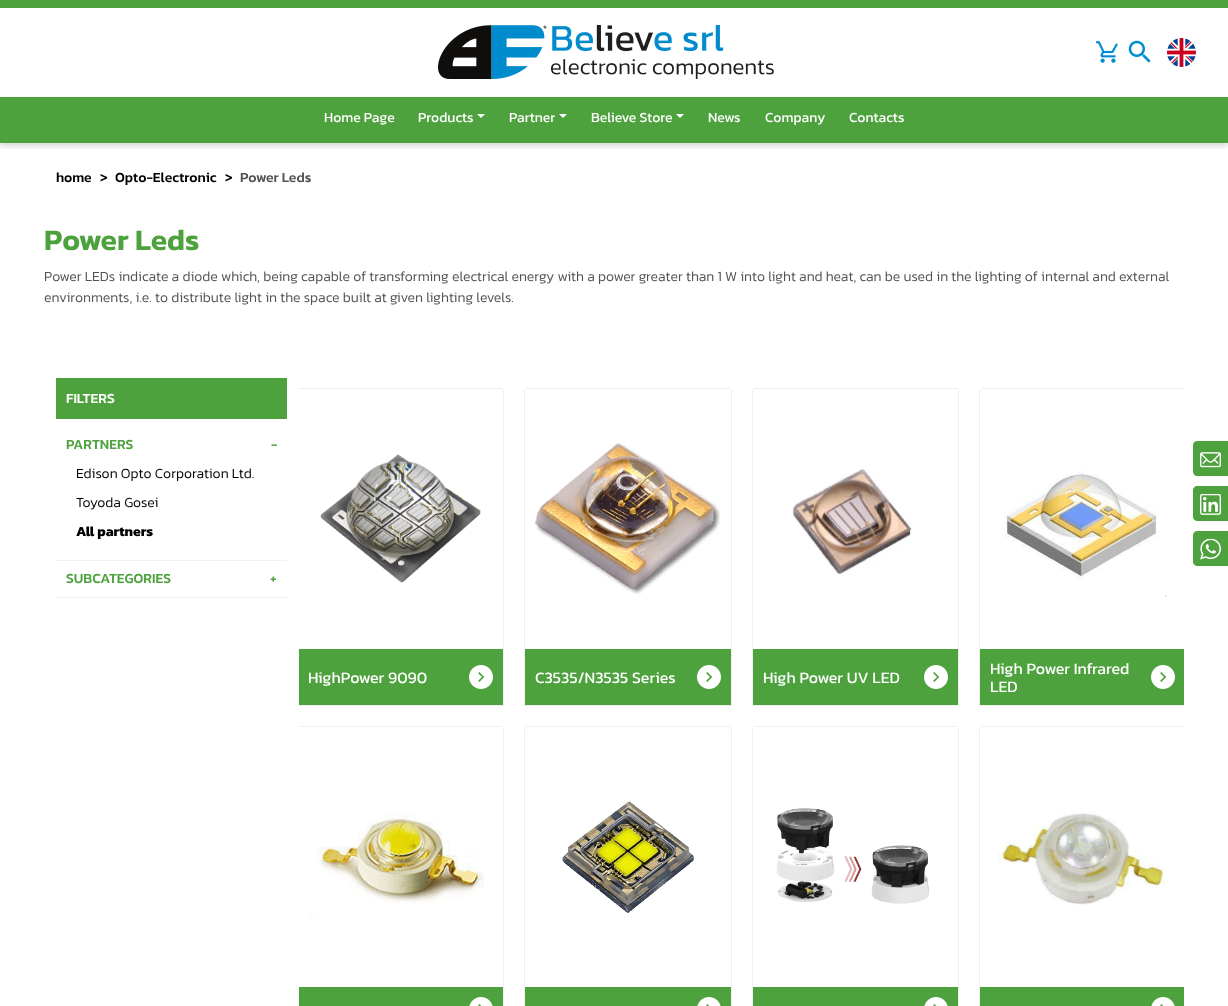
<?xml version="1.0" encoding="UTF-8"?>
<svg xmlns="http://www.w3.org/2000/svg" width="1228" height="1006">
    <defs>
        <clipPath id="clip1"><rect x="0" y="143" width="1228" height="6"/></clipPath>
        <filter id="blur1" x="-50%" y="-200%" width="200%" height="500%"><feGaussianBlur stdDeviation="3"/></filter>
        <clipPath id="clip2"><rect x="299" y="378" width="885" height="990"/></clipPath>
    </defs>
    <rect width="100%" height="100%" fill="#FFFFFF"/>
    <g clip-path="url(#clip1)">
        <rect x="0" y="3" width="1228" height="143" fill="#000000" fill-opacity="0.16" filter="url(#blur1)"/>
    </g>
    <rect x="0" y="0" width="1228" height="8" fill="#4EA23D"/>
    <image x="438" y="25" width="109" height="54" href="img_01.png"/>
    <image x="551" y="25" width="223" height="54" href="img_02.png"/>
    <image x="1096" y="41" width="22" height="22" href="img_03.png"/>
    <image x="1128" y="40" width="23" height="23" href="img_04.png"/>
    <image x="1167" y="38" width="29" height="29" href="img_05.png"/>
    <rect x="0" y="97" width="1228" height="46" fill="#4EA23D"/>
    <text x="324" y="122" font-family="Kanit" font-size="14" fill="#FFFFFF">Home Page</text>
    <text x="418" y="122" font-family="Kanit" font-size="14" fill="#FFFFFF">Products</text>
    <path d="M 477 114 H 485 L 481 118 Z" fill="#FFFFFF"/>
    <text x="509" y="122" font-family="Kanit" font-size="14" fill="#FFFFFF">Partner</text>
    <path d="M 559 114 H 567 L 563 118 Z" fill="#FFFFFF"/>
    <text x="591" y="122" font-family="Kanit" font-size="14" fill="#FFFFFF">Believe Store</text>
    <path d="M 676 114 H 684 L 680 118 Z" fill="#FFFFFF"/>
    <text x="708" y="122" font-family="Kanit" font-size="14" fill="#FFFFFF">News</text>
    <text x="765" y="122" font-family="Kanit" font-size="14" fill="#FFFFFF">Company</text>
    <text x="849" y="122" font-family="Kanit" font-size="14" fill="#FFFFFF">Contacts</text>
    <text x="56" y="182" font-family="Kanit" font-size="14" font-weight="500" fill="#000000">home</text>
    <text x="100" y="182" font-family="Kanit" font-size="14" font-weight="500" fill="#000000">&gt;</text>
    <text x="115" y="182" font-family="Kanit" font-size="14" font-weight="500" fill="#000000">Opto-Electronic</text>
    <text x="225" y="182" font-family="Kanit" font-size="14" font-weight="500" fill="#000000">&gt;</text>
    <text x="240" y="182" font-family="Kanit" font-size="14" font-weight="500" fill="#525252">Power Leds</text>
    <text x="44" y="250" font-family="Kanit" font-size="30" font-weight="600" fill="#4EA23D">Power Leds</text>
    <text font-family="Kanit" font-size="14" font-weight="300" fill="#525252">
        <tspan x="44" y="281">Power LEDs indicate a diode which, being capable of transforming electrical energy with a power greater than 1 W into light and heat, can be used in the lighting of internal and external</tspan>
        <tspan x="44" y="302">environments, i.e. to distribute light in the space built at given lighting levels.</tspan>
    </text>
    <rect x="56" y="378" width="231" height="41" fill="#4EA23D"/>
    <text x="66" y="403" font-family="Kanit" font-size="14" font-weight="500" fill="#FFFFFF">FILTERS</text>
    <rect x="56" y="560" width="231" height="1" fill="#F0F0F0"/>
    <text x="66" y="449" font-family="Kanit" font-size="14" font-weight="500" fill="#4EA23D">PARTNERS</text>
    <text x="271" y="449" font-family="Kanit" font-size="14" font-weight="500" fill="#4EA23D">-</text>
    <text x="76" y="478" font-family="Kanit" font-size="14" font-weight="300" fill="#000000">Edison Opto Corporation Ltd.</text>
    <text x="76" y="507" font-family="Kanit" font-size="14" font-weight="300" fill="#000000">Toyoda Gosei</text>
    <text x="76" y="536" font-family="Kanit" font-size="14" font-weight="700" fill="#000000">All partners</text>
    <rect x="56" y="597" width="231" height="1" fill="#F0F0F0"/>
    <text x="66" y="583" font-family="Kanit" font-size="14" font-weight="500" fill="#4EA23D">SUBCATEGORIES</text>
    <text x="270" y="583" font-family="Kanit" font-size="14" font-weight="500" fill="#4EA23D">+</text>
    <g clip-path="url(#clip2)">
        <path d="M 301 388.5 H 500 C 502 388.5 503.5 390 503.5 392 V 705.5 H 297.5 V 392 C 297.5 390 299 388.5 301 388.5 Z" fill="#4EA23D" stroke="#F0F0F0"/>
    </g>
    <rect x="299" y="389" width="204" height="260" fill="#FFFFFF"/>
    <image x="320" y="454" width="161" height="129" href="img_06.png"/>
    <text x="308" y="683" font-family="Kanit" font-size="16" fill="#FFFFFF">HighPower 9090</text>
    <image x="469" y="665" width="24" height="24" href="img_07.png"/>
    <path d="M 528 388.5 H 728 C 730 388.5 731.5 390 731.5 392 V 705.5 H 524.5 V 392 C 524.5 390 526 388.5 528 388.5 Z" fill="#4EA23D" stroke="#F0F0F0"/>
    <rect x="525" y="389" width="206" height="260" fill="#FFFFFF"/>
    <image x="535" y="443" width="185" height="151" href="img_08.png"/>
    <text x="535" y="683" font-family="Kanit" font-size="16" fill="#FFFFFF">C3535/N3535 Series</text>
    <image x="697" y="665" width="24" height="24" href="img_07.png"/>
    <path d="M 756 388.5 H 955 C 957 388.5 958.5 390 958.5 392 V 705.5 H 752.5 V 392 C 752.5 390 754 388.5 756 388.5 Z" fill="#4EA23D" stroke="#F0F0F0"/>
    <rect x="753" y="389" width="205" height="260" fill="#FFFFFF"/>
    <image x="792" y="469" width="120" height="106" href="img_09.png"/>
    <text x="763" y="683" font-family="Kanit" font-size="16" fill="#FFFFFF">High Power UV LED</text>
    <image x="924" y="665" width="24" height="24" href="img_07.png"/>
    <g clip-path="url(#clip2)">
        <path d="M 983 388.5 H 1182 C 1184 388.5 1185.5 390 1185.5 392 V 705.5 H 979.5 V 392 C 979.5 390 981 388.5 983 388.5 Z" fill="#4EA23D" stroke="#F0F0F0"/>
    </g>
    <rect x="980" y="389" width="204" height="260" fill="#FFFFFF"/>
    <image x="1004" y="470" width="163" height="127" href="img_10.png"/>
    <text font-family="Kanit" font-size="16" fill="#FFFFFF">
        <tspan x="990" y="674">High Power Infrared</tspan>
        <tspan x="990" y="692">LED</tspan>
    </text>
    <image x="1151" y="665" width="24" height="24" href="img_07.png"/>
    <g clip-path="url(#clip2)">
        <path d="M 301 726.5 H 500 C 502 726.5 503.5 728 503.5 730 V 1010.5 H 297.5 V 730 C 297.5 728 299 726.5 301 726.5 Z" fill="#4EA23D" stroke="#F0F0F0"/>
    </g>
    <rect x="299" y="727" width="204" height="260" fill="#FFFFFF"/>
    <image x="308" y="813" width="176" height="104" href="img_11.png"/>
    <image x="469" y="997" width="24" height="9" href="img_12.png"/>
    <path d="M 528 726.5 H 728 C 730 726.5 731.5 728 731.5 730 V 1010.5 H 524.5 V 730 C 524.5 728 526 726.5 528 726.5 Z" fill="#4EA23D" stroke="#F0F0F0"/>
    <rect x="525" y="727" width="206" height="260" fill="#FFFFFF"/>
    <image x="562" y="801" width="132" height="112" href="img_13.png"/>
    <image x="697" y="997" width="24" height="9" href="img_12.png"/>
    <path d="M 756 726.5 H 955 C 957 726.5 958.5 728 958.5 730 V 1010.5 H 752.5 V 730 C 752.5 728 754 726.5 756 726.5 Z" fill="#4EA23D" stroke="#F0F0F0"/>
    <rect x="753" y="727" width="205" height="260" fill="#FFFFFF"/>
    <image x="776" y="808" width="154" height="96" href="img_14.png"/>
    <image x="924" y="997" width="24" height="9" href="img_12.png"/>
    <g clip-path="url(#clip2)">
        <path d="M 983 726.5 H 1182 C 1184 726.5 1185.5 728 1185.5 730 V 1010.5 H 979.5 V 730 C 979.5 728 981 726.5 983 726.5 Z" fill="#4EA23D" stroke="#F0F0F0"/>
    </g>
    <rect x="980" y="727" width="204" height="260" fill="#FFFFFF"/>
    <image x="997" y="811" width="170" height="94" href="img_15.png"/>
    <image x="1151" y="997" width="24" height="9" href="img_12.png"/>
    <path d="M 1197 441 H 1228 V 476 H 1197 C 1195 476 1193 474 1193 472 V 445 C 1193 443 1195 441 1197 441 Z" fill="#4EA23D"/>
    <image x="1200" y="452" width="21" height="16" href="img_16.png"/>
    <path d="M 1197 486 H 1228 V 521 H 1197 C 1195 521 1193 519 1193 517 V 490 C 1193 488 1195 486 1197 486 Z" fill="#4EA23D"/>
    <image x="1200" y="494" width="21" height="21" href="img_17.png"/>
    <path d="M 1197 531 H 1228 V 566 H 1197 C 1195 566 1193 564 1193 562 V 535 C 1193 533 1195 531 1197 531 Z" fill="#4EA23D"/>
    <image x="1200" y="539" width="21" height="21" href="img_18.png"/>
</svg>
